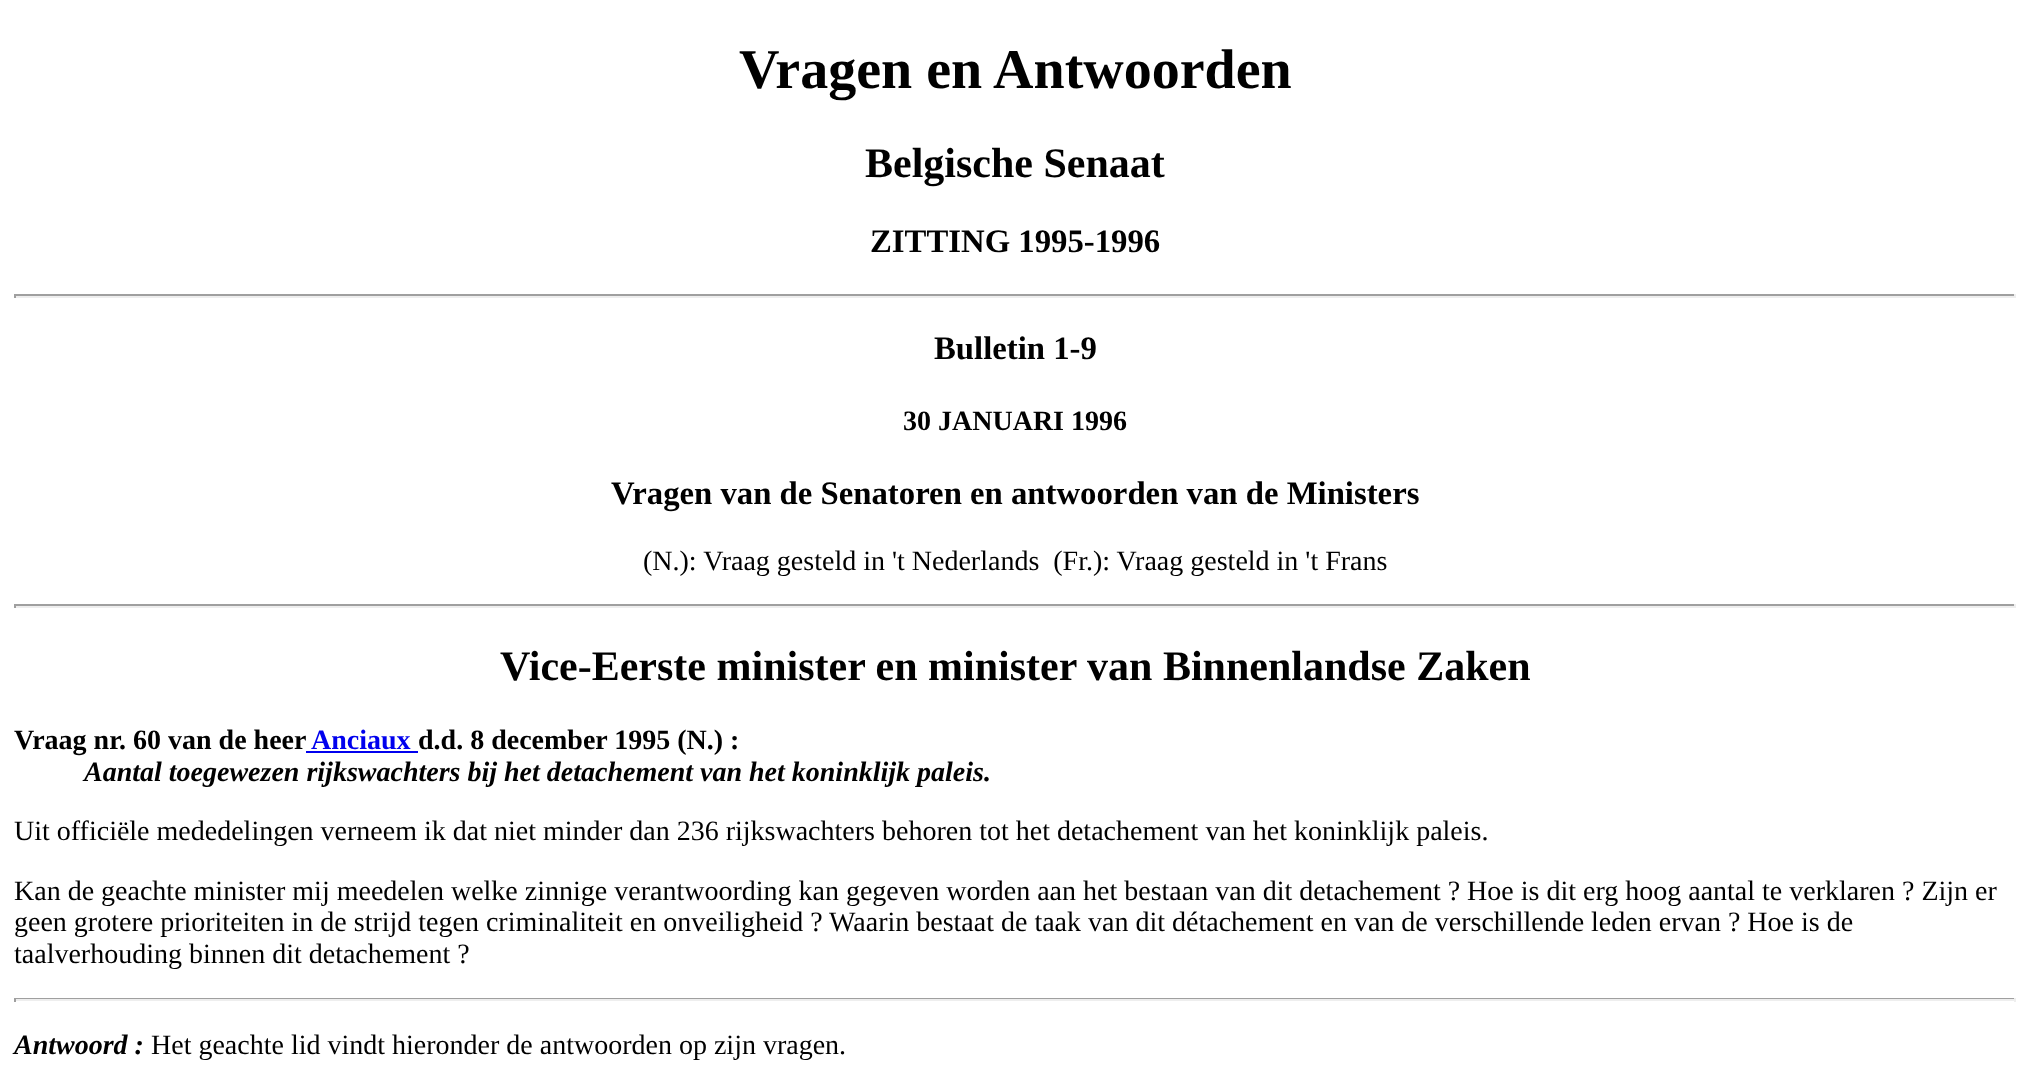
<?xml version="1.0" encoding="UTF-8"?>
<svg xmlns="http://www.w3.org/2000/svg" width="2029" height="1083">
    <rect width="100%" height="100%" fill="#FFFFFF"/>
    <text x="739" y="88" font-family="Liberation Serif" font-size="56" font-weight="700" fill="#000000">Vragen en Antwoorden</text>
    <text x="865" y="177" font-family="Liberation Serif" font-size="42" font-weight="700" fill="#000000">Belgische Senaat</text>
    <text x="870" y="252" font-family="Liberation Serif" font-size="32.75" font-weight="700" fill="#000000">ZITTING 1995-1996</text>
    <rect x="14" y="294" width="2002" height="2" fill="#9F9F9F"/>
    <rect x="2014" y="294" width="2" height="4" fill="#EEEEEE"/>
    <rect x="14" y="296" width="2002" height="2" fill="#EEEEEE"/>
    <rect x="14" y="294" width="2" height="4" fill="#9F9F9F"/>
    <text x="934" y="359" font-family="Liberation Serif" font-size="32.75" font-weight="700" fill="#000000">Bulletin 1-9</text>
    <text x="903" y="430" font-family="Liberation Serif" font-size="28" font-weight="700" fill="#000000">30 JANUARI 1996</text>
    <text x="611" y="504" font-family="Liberation Serif" font-size="32.75" font-weight="700" fill="#000000">Vragen van de Senatoren en antwoorden van de Ministers</text>
    <text x="643" y="570" font-family="Liberation Serif" font-size="28" fill="#000000" xml:space="preserve">(N.): Vraag gesteld in 't Nederlands  (Fr.): Vraag gesteld in 't Frans</text>
    <rect x="14" y="604" width="2002" height="2" fill="#9F9F9F"/>
    <rect x="2014" y="604" width="2" height="4" fill="#EEEEEE"/>
    <rect x="14" y="606" width="2002" height="2" fill="#EEEEEE"/>
    <rect x="14" y="604" width="2" height="4" fill="#9F9F9F"/>
    <text x="500" y="680" font-family="Liberation Serif" font-size="42" font-weight="700" fill="#000000">Vice-Eerste minister en minister van Binnenlandse Zaken</text>
    <text x="14" y="749" font-family="Liberation Serif" font-size="28" font-weight="700" fill="#000000">Vraag nr. 60 van de heer</text>
    <rect x="306" y="751" width="112" height="2" fill="#0000EE"/>
    <text x="311" y="749" font-family="Liberation Serif" font-size="28" font-weight="700" fill="#0000EE">Anciaux</text>
    <text x="418" y="749" font-family="Liberation Serif" font-size="28" font-weight="700" fill="#000000">d.d. 8 december 1995 (N.) :</text>
    <text x="84" y="781" font-family="Liberation Serif" font-size="28" font-weight="700" font-style="italic" fill="#000000">Aantal toegewezen rijkswachters bij het detachement van het koninklijk paleis.</text>
    <text x="14" y="840" font-family="Liberation Serif" font-size="28" fill="#000000">Uit officiële mededelingen verneem ik dat niet minder dan 236 rijkswachters behoren tot het detachement van het koninklijk paleis.</text>
    <text font-family="Liberation Serif" font-size="28" fill="#000000">
        <tspan x="14" y="900">Kan de geachte minister mij meedelen welke zinnige verantwoording kan gegeven worden aan het bestaan van dit detachement ? Hoe is dit erg hoog aantal te verklaren ? Zijn er</tspan>
        <tspan x="14" y="931">geen grotere prioriteiten in de strijd tegen criminaliteit en onveiligheid ? Waarin bestaat de taak van dit détachement en van de verschillende leden ervan ? Hoe is de</tspan>
        <tspan x="14" y="963">taalverhouding binnen dit detachement ?</tspan>
    </text>
    <rect x="14" y="998" width="2002" height="1" fill="#9F9F9F"/>
    <rect x="2014" y="998" width="2" height="4" fill="#EEEEEE"/>
    <rect x="14" y="999" width="2002" height="2" fill="#EEEEEE"/>
    <rect x="14" y="998" width="2" height="4" fill="#9F9F9F"/>
    <text x="14" y="1054" font-family="Liberation Serif" font-size="28" font-weight="700" font-style="italic" fill="#000000">Antwoord :</text>
    <text x="151" y="1054" font-family="Liberation Serif" font-size="28" fill="#000000">Het geachte lid vindt hieronder de antwoorden op zijn vragen.</text>
</svg>
